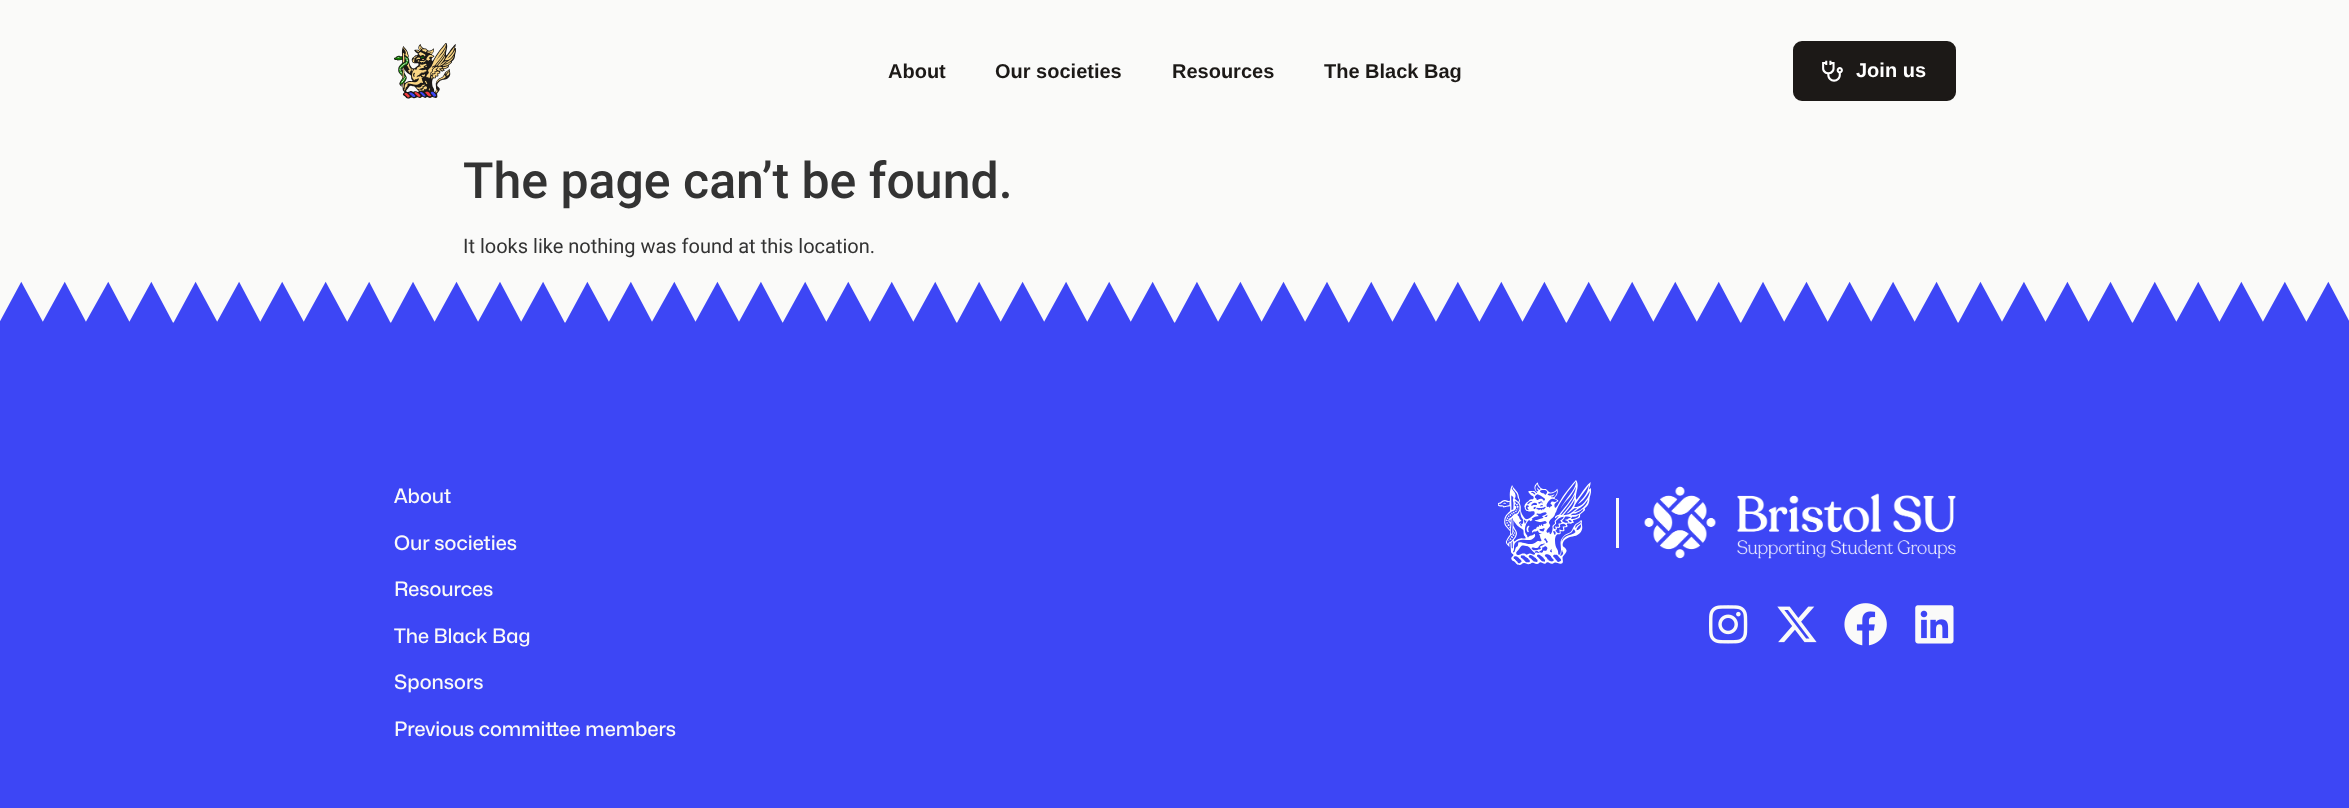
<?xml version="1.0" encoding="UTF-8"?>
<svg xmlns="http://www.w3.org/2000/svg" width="2349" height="808">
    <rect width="100%" height="100%" fill="#FAFAF9"/>
    <image x="394" y="43" width="62" height="56" href="img_01.png"/>
    <text x="888" y="78" font-family="Liberation Sans" font-size="20" font-weight="700" fill="#1C1917">About</text>
    <text x="995" y="78" font-family="Liberation Sans" font-size="20" font-weight="700" fill="#1C1917">Our societies</text>
    <text x="1172" y="78" font-family="Liberation Sans" font-size="20" font-weight="700" fill="#1C1917">Resources</text>
    <text x="1324" y="78" font-family="Liberation Sans" font-size="20" font-weight="700" fill="#1C1917">The Black Bag</text>
    <rect x="1794.5" y="42.5" width="160" height="57" rx="7.5" fill="#1C1917" stroke="#1C1917" stroke-width="3"/>
    <image x="1822" y="60" width="21" height="22" href="img_02.png"/>
    <text x="1856" y="77" font-family="Liberation Sans" font-size="20" font-weight="700" fill="#FFFFFF">Join us</text>
    <text x="463" y="198" font-family="Roboto" font-size="50" font-weight="500" fill="#333333">The page can’t be found.</text>
    <text x="463" y="253" font-family="Roboto" font-size="20" fill="#333333">It looks like nothing was found at this location.</text>
    <rect x="0" y="281" width="2349" height="527" fill="#3D46F5"/>
    <image x="0" y="280" width="2349" height="43" href="img_03.png"/>
    <text x="394" y="503" font-family="Mona Sans" font-size="20" font-weight="500" fill="#FAFAF9">About</text>
    <text x="394" y="550" font-family="Mona Sans" font-size="20" font-weight="500" fill="#FAFAF9">Our societies</text>
    <text x="394" y="596" font-family="Mona Sans" font-size="20" font-weight="500" fill="#FAFAF9">Resources</text>
    <text x="394" y="643" font-family="Mona Sans" font-size="20" font-weight="500" fill="#FAFAF9">The Black Bag</text>
    <text x="394" y="689" font-family="Mona Sans" font-size="20" font-weight="500" fill="#FAFAF9">Sponsors</text>
    <text x="394" y="736" font-family="Mona Sans" font-size="20" font-weight="500" fill="#FAFAF9">Previous committee members</text>
    <image x="1498" y="480" width="93" height="85" href="img_04.png"/>
    <rect x="1616" y="498" width="3" height="50" fill="#FAFAF9"/>
    <image x="1644" y="486" width="312" height="73" href="img_05.png"/>
    <image x="1709" y="605" width="39" height="39" href="img_06.png"/>
    <image x="1777" y="606" width="40" height="37" href="img_07.png"/>
    <image x="1844" y="603" width="43" height="43" href="img_08.png"/>
    <image x="1915" y="605" width="39" height="39" href="img_09.png"/>
</svg>
